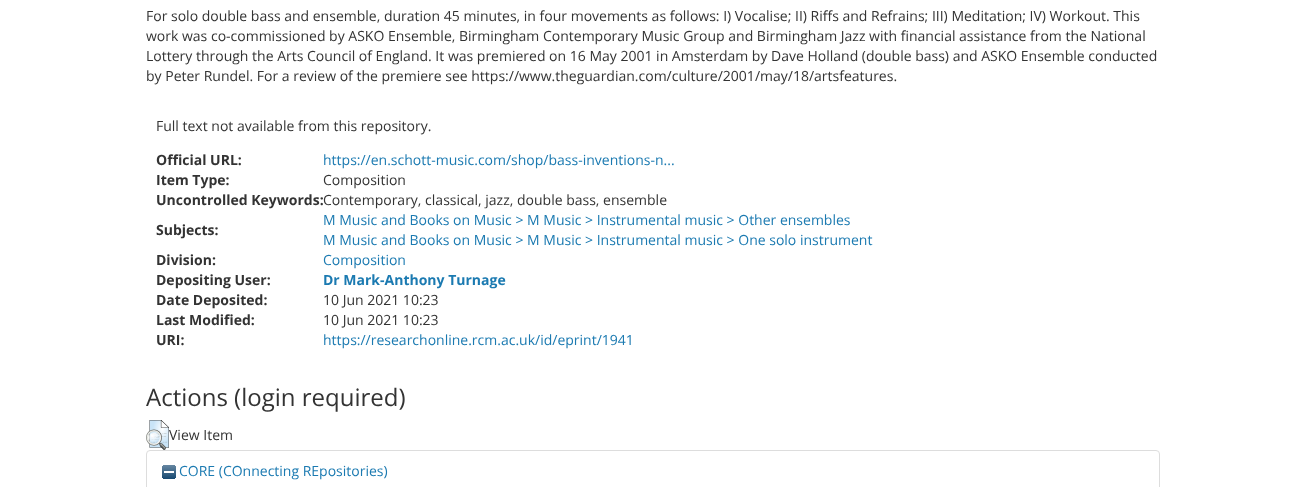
<?xml version="1.0" encoding="UTF-8"?>
<svg xmlns="http://www.w3.org/2000/svg" width="1306" height="487">
    <rect width="100%" height="100%" fill="#FFFFFF"/>
    <text font-family="Open Sans" font-size="14" fill="#333333">
        <tspan x="146" y="21">For solo double bass and ensemble, duration 45 minutes, in four movements as follows: I) Vocalise; II) Riffs and Refrains; III) Meditation; IV) Workout. This</tspan>
        <tspan x="146" y="41">work was co-commissioned by ASKO Ensemble, Birmingham Contemporary Music Group and Birmingham Jazz with financial assistance from the National</tspan>
        <tspan x="146" y="61">Lottery through the Arts Council of England. It was premiered on 16 May 2001 in Amsterdam by Dave Holland (double bass) and ASKO Ensemble conducted</tspan>
        <tspan x="146" y="81">by Peter Rundel. For a review of the premiere see https://www.theguardian.com/culture/2001/may/18/artsfeatures.</tspan>
    </text>
    <text x="156" y="131" font-family="Open Sans" font-size="14" fill="#333333">Full text not available from this repository.</text>
    <text x="156" y="165" font-family="Open Sans" font-size="14" font-weight="700" fill="#333333">Official URL:</text>
    <text x="323" y="165" font-family="Open Sans" font-size="14" fill="#1B7AB1">https://en.schott-music.com/shop/bass-inventions-n...</text>
    <text x="156" y="185" font-family="Open Sans" font-size="14" font-weight="700" fill="#333333">Item Type:</text>
    <text x="323" y="185" font-family="Open Sans" font-size="14" fill="#333333">Composition</text>
    <text x="156" y="205" font-family="Open Sans" font-size="14" font-weight="700" fill="#333333">Uncontrolled Keywords:</text>
    <text x="323" y="205" font-family="Open Sans" font-size="14" fill="#333333">Contemporary, classical, jazz, double bass, ensemble</text>
    <text x="156" y="235" font-family="Open Sans" font-size="14" font-weight="700" fill="#333333">Subjects:</text>
    <text font-family="Open Sans" font-size="14" fill="#1B7AB1">
        <tspan x="323" y="225">M Music and Books on Music &gt; M Music &gt; Instrumental music &gt; Other ensembles</tspan>
        <tspan x="323" y="245">M Music and Books on Music &gt; M Music &gt; Instrumental music &gt; One solo instrument</tspan>
    </text>
    <text x="156" y="265" font-family="Open Sans" font-size="14" font-weight="700" fill="#333333">Division:</text>
    <text x="323" y="265" font-family="Open Sans" font-size="14" fill="#1B7AB1">Composition</text>
    <text x="156" y="285" font-family="Open Sans" font-size="14" font-weight="700" fill="#333333">Depositing User:</text>
    <text x="323" y="285" font-family="Open Sans" font-size="14" font-weight="700" fill="#1B7AB1">Dr Mark-Anthony Turnage</text>
    <text x="156" y="305" font-family="Open Sans" font-size="14" font-weight="700" fill="#333333">Date Deposited:</text>
    <text x="323" y="305" font-family="Open Sans" font-size="14" fill="#333333">10 Jun 2021 10:23</text>
    <text x="156" y="325" font-family="Open Sans" font-size="14" font-weight="700" fill="#333333">Last Modified:</text>
    <text x="323" y="325" font-family="Open Sans" font-size="14" fill="#333333">10 Jun 2021 10:23</text>
    <text x="156" y="345" font-family="Open Sans" font-size="14" font-weight="700" fill="#333333">URI:</text>
    <text x="323" y="345" font-family="Open Sans" font-size="14" fill="#1B7AB1">https://researchonline.rcm.ac.uk/id/eprint/1941</text>
    <text x="146" y="406" font-family="Open Sans" font-size="24" fill="#333333">Actions (login required)</text>
    <image x="146" y="420" width="23" height="30" href="img_01.png"/>
    <text x="169" y="440" font-family="Open Sans" font-size="14" fill="#333333">View Item</text>
    <rect x="146.5" y="450.5" width="1013" height="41" rx="3.5" fill="none" stroke="#DDDDDD"/>
    <image x="162" y="465" width="14" height="14" href="img_02.png"/>
    <text x="179" y="476" font-family="Open Sans" font-size="14" fill="#1B7AB1">CORE (COnnecting REpositories)</text>
</svg>
